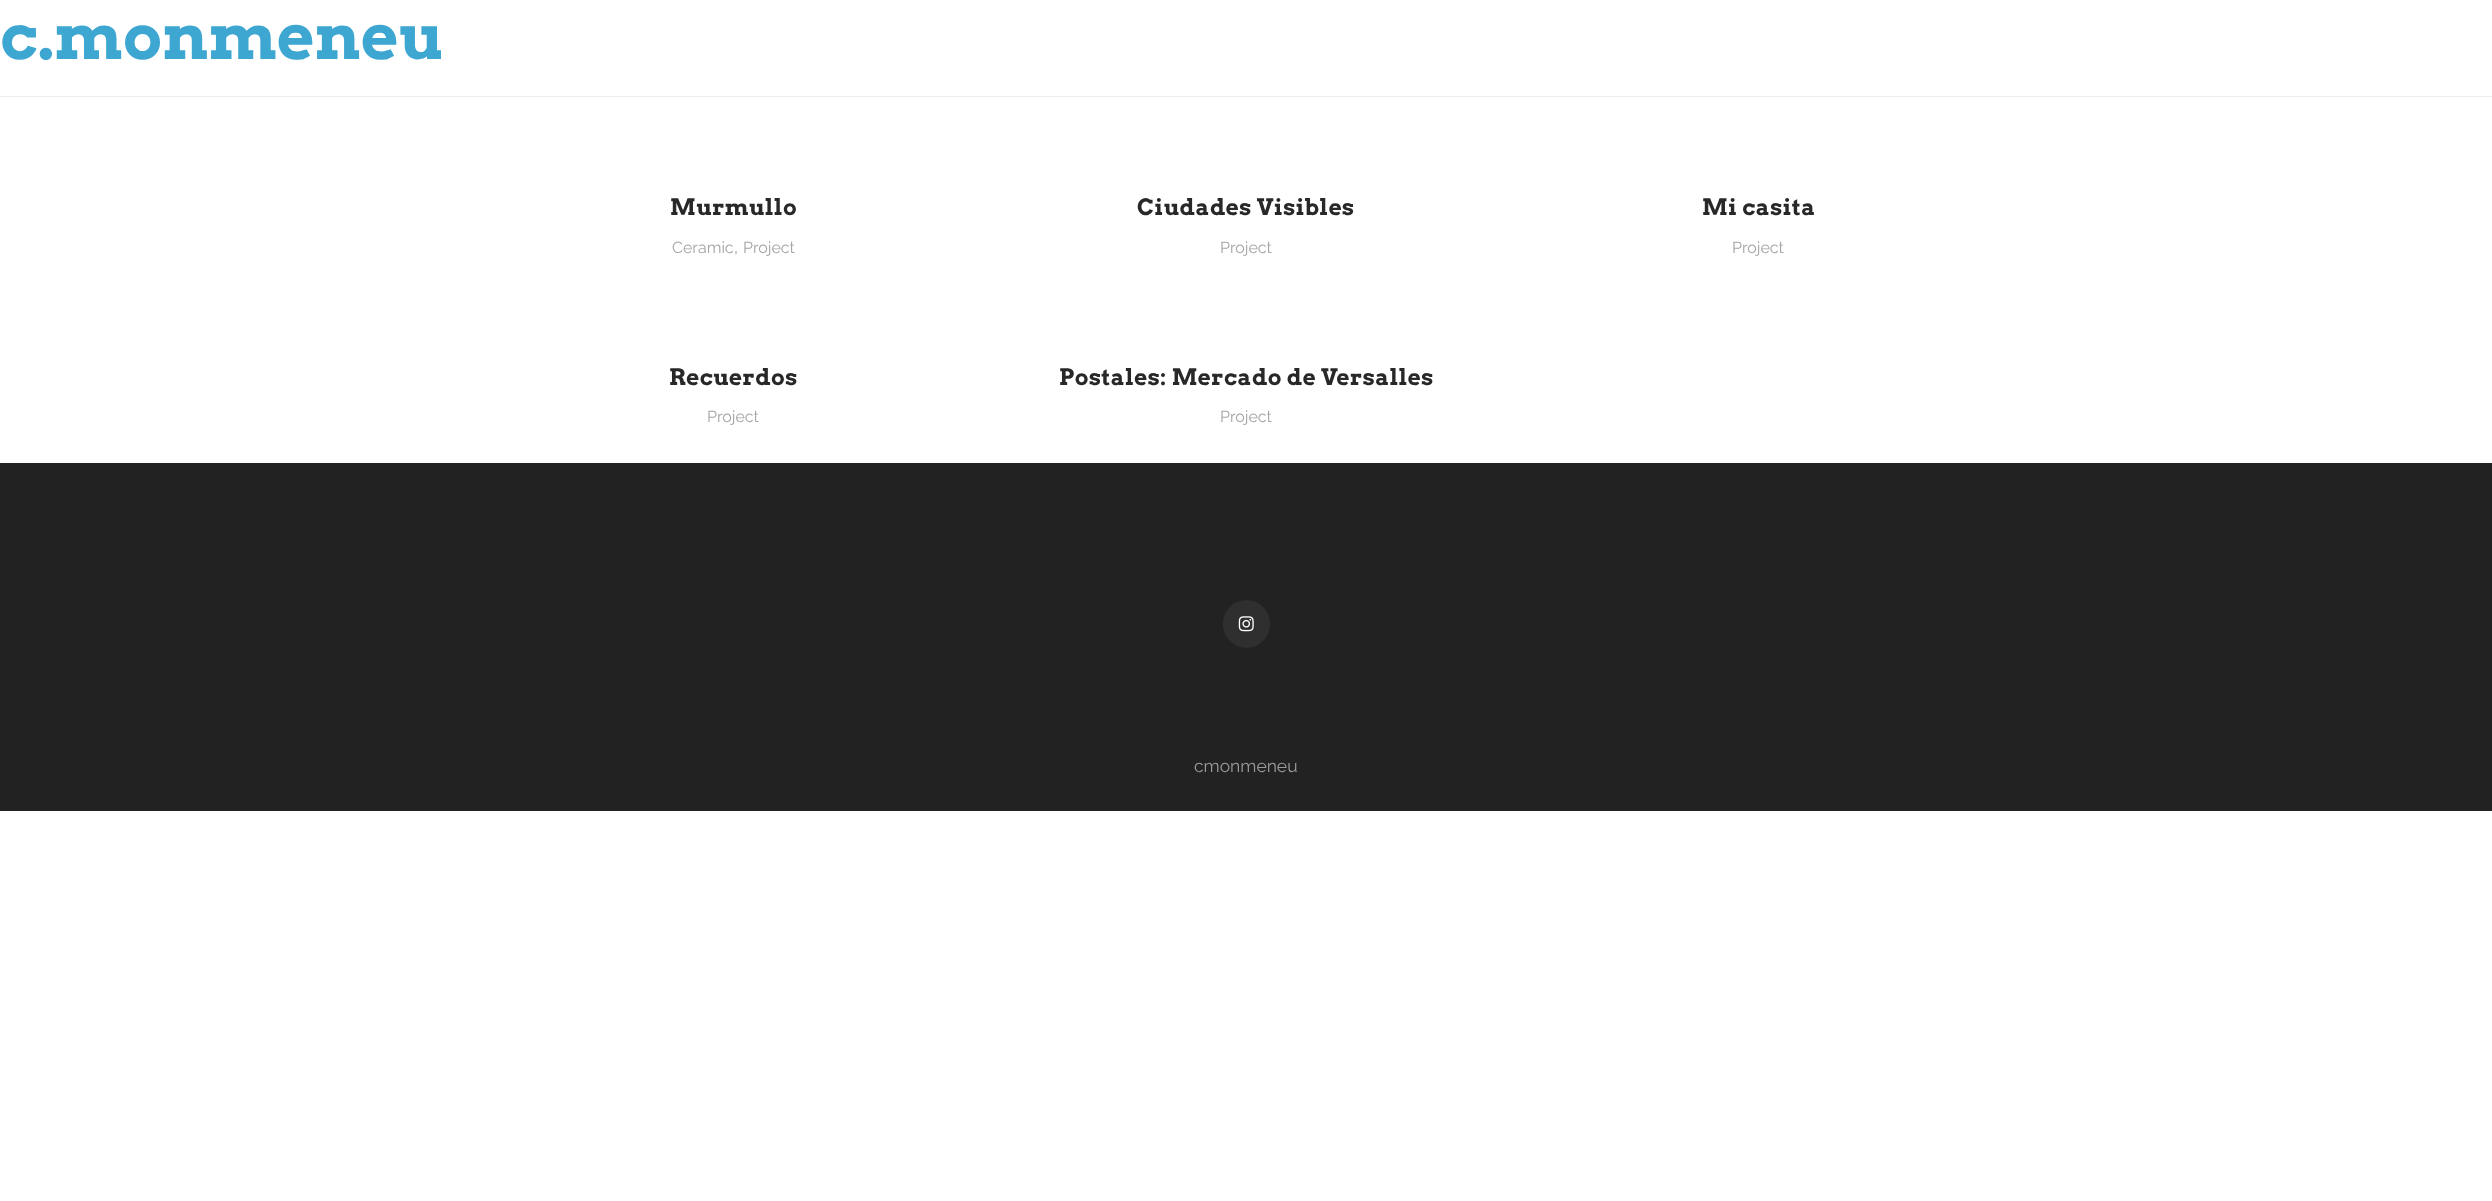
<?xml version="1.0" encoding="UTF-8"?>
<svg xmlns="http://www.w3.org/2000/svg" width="2492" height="1201">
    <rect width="100%" height="100%" fill="#FFFFFF"/>
    <text x="0" y="59" font-family="Arvo" font-size="65" font-weight="700" fill="#3EA7D1">c.monmeneu</text>
    <rect x="0" y="96" width="2492" height="1" fill="#EEEEEE"/>
    <text x="670" y="215" font-family="Arvo" font-size="22.5" font-weight="700" letter-spacing="0.45" fill="#282828">Murmullo</text>
    <text x="672" y="253" font-family="Raleway" font-size="16" fill="#A5A5A5">Ceramic</text>
    <text x="734" y="253" font-family="Raleway" font-size="17.5" fill="#9B9B9B">,</text>
    <text x="743" y="253" font-family="Raleway" font-size="16" fill="#A5A5A5">Project</text>
    <text x="1137" y="215" font-family="Arvo" font-size="22.5" font-weight="700" letter-spacing="0.45" fill="#282828">Ciudades Visibles</text>
    <text x="1220" y="253" font-family="Raleway" font-size="16" fill="#A5A5A5">Project</text>
    <text x="1702" y="215" font-family="Arvo" font-size="22.5" font-weight="700" letter-spacing="0.45" fill="#282828">Mi casita</text>
    <text x="1732" y="253" font-family="Raleway" font-size="16" fill="#A5A5A5">Project</text>
    <text x="669" y="385" font-family="Arvo" font-size="22.5" font-weight="700" letter-spacing="0.45" fill="#282828">Recuerdos</text>
    <text x="707" y="422" font-family="Raleway" font-size="16" fill="#A5A5A5">Project</text>
    <text x="1059" y="385" font-family="Arvo" font-size="22.5" font-weight="700" letter-spacing="0.45" fill="#282828">Postales: Mercado de Versalles</text>
    <text x="1220" y="422" font-family="Raleway" font-size="16" fill="#A5A5A5">Project</text>
    <rect x="0" y="463" width="2492" height="348" fill="#222222"/>
    <rect x="1223" y="600" width="47" height="48" rx="23.5" fill="#2F2F2F"/>
    <image x="1238" y="616" width="16" height="16" href="img_01.png"/>
    <text x="1194" y="772" font-family="Raleway" font-size="17.5" fill="#9B9B9B">cmonmeneu</text>
</svg>
